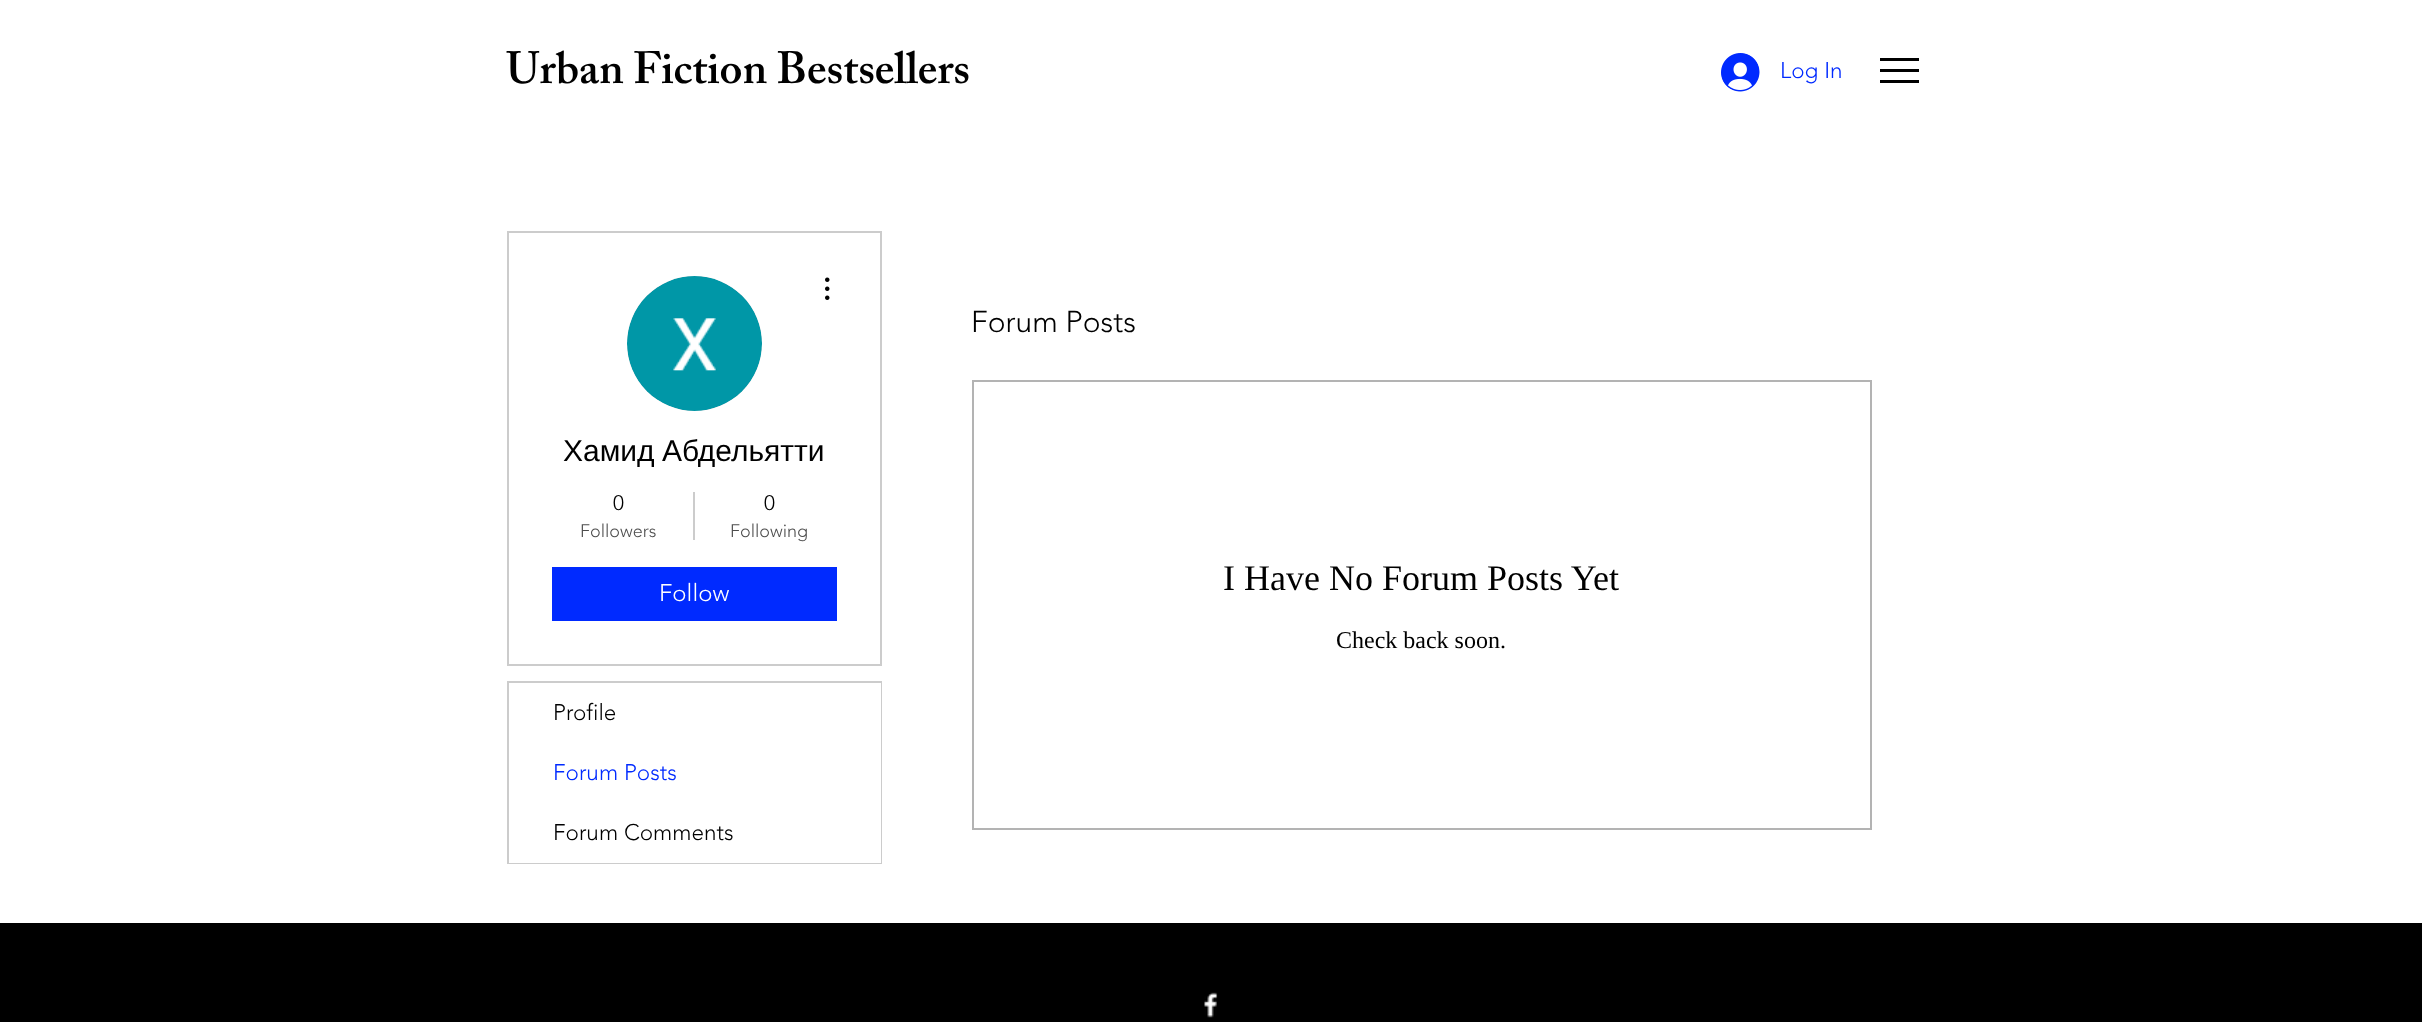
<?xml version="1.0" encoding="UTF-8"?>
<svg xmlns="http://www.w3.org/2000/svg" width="2422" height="1022">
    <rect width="100%" height="100%" fill="#FFFFFF"/>
    <text x="506" y="83" font-family="'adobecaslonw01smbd'" font-size="45" font-weight="600" fill="#000000">Urban Fiction Bestsellers</text>
    <image x="1721" y="53" width="39" height="39" href="img_01.png"/>
    <text x="1780" y="78" font-family="'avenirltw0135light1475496'" font-size="22.5" font-weight="300" fill="#002AFF">Log In</text>
    <rect x="1880" y="80" width="39" height="3" fill="#000000"/>
    <rect x="1880" y="58" width="39" height="3" fill="#000000"/>
    <rect x="1880" y="69" width="39" height="3" fill="#000000"/>
    <rect x="508" y="232" width="373" height="433" fill="none" stroke="#CCCCCC" stroke-width="2"/>
    <circle cx="694.5" cy="343.5" r="67.5" fill="#D8D8D8"/>
    <image x="627" y="276" width="135" height="135" href="img_02.png"/>
    <image x="825" y="277" width="5" height="23" href="img_03.png"/>
    <text x="563" y="461" word-spacing="-1" font-family="Liberation Sans" font-size="30" fill="#000000">Хамид Абдельятти</text>
    <text x="613" y="510" font-family="'avenirltw0135light1475496'" font-size="21" font-weight="300" fill="#000000">0</text>
    <text x="580" y="537" font-family="'avenirltw0135light1475496'" font-size="18" font-weight="300" fill="#4D4D4D">Followers</text>
    <rect x="693" y="492" width="2" height="48" fill="#CCCCCC"/>
    <text x="764" y="510" font-family="'avenirltw0135light1475496'" font-size="21" font-weight="300" fill="#000000">0</text>
    <text x="730" y="537" font-family="'avenirltw0135light1475496'" font-size="18" font-weight="300" fill="#4D4D4D">Following</text>
    <rect x="552" y="567" width="285" height="54" fill="#002AFF"/>
    <text x="659" y="601" font-family="'avenirltw0135light1475496'" font-size="24" font-weight="300" fill="#FFFFFF">Follow</text>
    <rect x="508" y="682" width="373" height="181" fill="none" stroke="#CCCCCC" stroke-width="2"/>
    <rect x="880" y="683" width="1" height="120" fill="#FFFFFF"/>
    <text x="553" y="720" font-family="'avenirltw0135light1475496'" font-size="22.5" font-weight="300" fill="#000000">Profile</text>
    <text x="553" y="780" font-family="'avenirltw0135light1475496'" font-size="22.5" font-weight="300" fill="#002AFF">Forum Posts</text>
    <rect x="509" y="803" width="372" height="60" fill="#FFFFFF"/>
    <text x="553" y="840" font-family="'avenirltw0135light1475496'" font-size="22.5" font-weight="300" fill="#000000">Forum Comments</text>
    <text x="971" y="332" font-family="'avenirltw0135light1475496'" font-size="30" font-weight="300" fill="#000000">Forum Posts</text>
    <rect x="973" y="381" width="898" height="448" fill="none" stroke="#B3B3B3" stroke-width="2"/>
    <text x="1223" y="590" font-family="Liberation Serif" font-size="36" fill="#000000">I Have No Forum Posts Yet</text>
    <text x="1336" y="648" font-family="Liberation Serif" font-size="24" fill="#000000">Check back soon.</text>
    <rect x="0" y="923" width="2422" height="99" fill="#000000"/>
    <image x="1204" y="992" width="14" height="26" href="img_04.png"/>
</svg>
